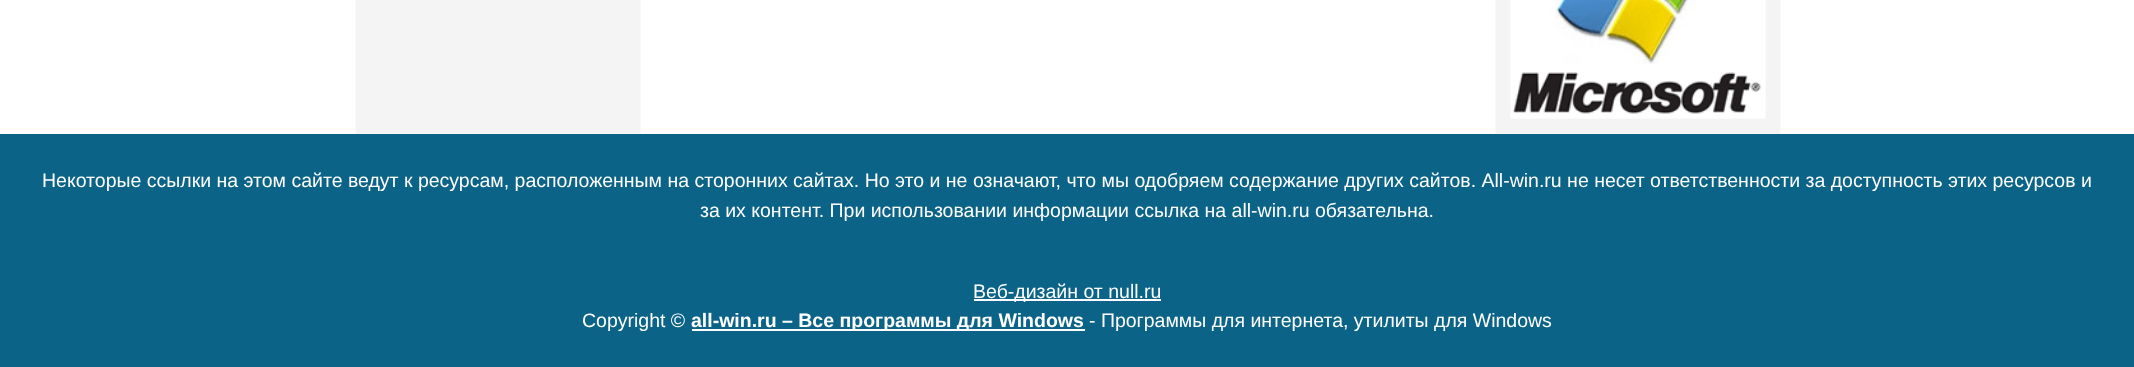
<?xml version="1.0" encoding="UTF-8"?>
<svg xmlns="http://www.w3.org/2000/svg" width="2134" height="367">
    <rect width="100%" height="100%" fill="#FFFFFF"/>
    <image x="355" y="0" width="1426" height="134" href="img_01.png"/>
    <image x="1510" y="0" width="256" height="119" href="img_02.png"/>
    <rect x="0" y="134" width="2134" height="233" fill="#0B6387"/>
    <text x="42" y="187" font-family="Liberation Sans" font-size="19.5" fill="#FFFFFF">Некоторые ссылки на этом сайте ведут к ресурсам, расположенным на сторонних сайтах. Но это и не означают, что мы одобряем содержание других сайтов. All-win.ru не несет ответственности за доступность этих ресурсов и</text>
    <text x="700" y="217" font-family="Liberation Sans" font-size="19.5" fill="#FFFFFF">за их контент. При использовании информации ссылка на all-win.ru обязательна.</text>
    <rect x="974" y="299" width="187" height="2" fill="#FFFFFF"/>
    <text x="973" y="298" font-family="Liberation Sans" font-size="19.5" fill="#FFFFFF">Веб-дизайн от null.ru</text>
    <text x="582" y="327" font-family="Liberation Sans" font-size="19.5" fill="#FFFFFF">Copyright ©</text>
    <rect x="692" y="329" width="393" height="2" fill="#FFFFFF"/>
    <text x="691" y="327" font-family="Liberation Sans" font-size="19.5" font-weight="700" fill="#FFFFFF">all-win.ru – Все программы для Windows</text>
    <text x="1089" y="327" font-family="Liberation Sans" font-size="19.5" fill="#FFFFFF">- Программы для интернета, утилиты для Windows</text>
</svg>
